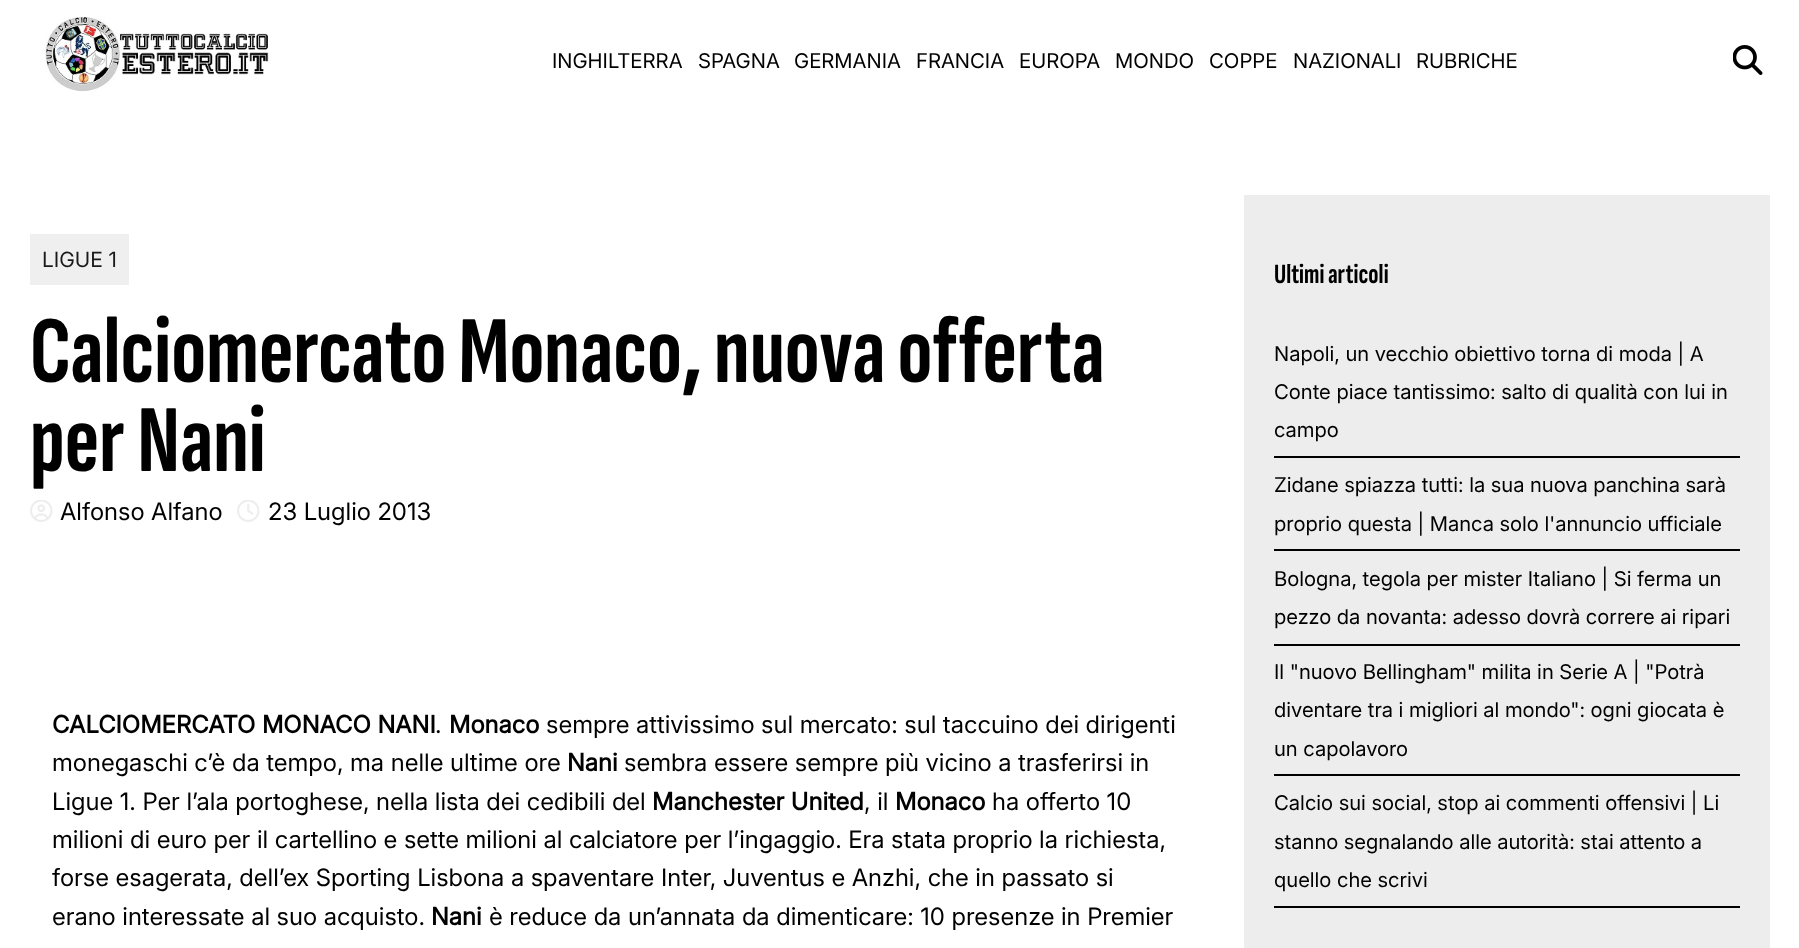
<?xml version="1.0" encoding="UTF-8"?>
<svg xmlns="http://www.w3.org/2000/svg" width="1799" height="948">
    <rect width="100%" height="100%" fill="#FFFFFF"/>
    <image x="45" y="16" width="224" height="76" href="img_01.png"/>
    <text x="552" y="68" font-family="Inter" font-size="20.4" fill="#000000">INGHILTERRA</text>
    <text x="698" y="68" font-family="Inter" font-size="20.4" fill="#000000">SPAGNA</text>
    <text x="794" y="68" font-family="Inter" font-size="20.4" fill="#000000">GERMANIA</text>
    <text x="916" y="68" font-family="Inter" font-size="20.4" fill="#000000">FRANCIA</text>
    <text x="1019" y="68" font-family="Inter" font-size="20.4" fill="#000000">EUROPA</text>
    <text x="1115" y="68" font-family="Inter" font-size="20.4" fill="#000000">MONDO</text>
    <text x="1209" y="68" font-family="Inter" font-size="20.4" fill="#000000">COPPE</text>
    <text x="1293" y="68" font-family="Inter" font-size="20.4" fill="#000000">NAZIONALI</text>
    <text x="1416" y="68" font-family="Inter" font-size="20.4" fill="#000000">RUBRICHE</text>
    <image x="1733" y="45" width="30" height="30" href="img_02.png"/>
    <rect x="30" y="234" width="99" height="51" fill="#EFEFEF"/>
    <text x="42" y="267" font-family="Inter" font-size="21" fill="#1A1A1A">LIGUE 1</text>
    <text font-family="Sofia Sans Extra Condensed" font-size="96" font-weight="700" fill="#000000">
        <tspan x="30" y="382">Calciomercato Monaco, nuova offerta</tspan>
        <tspan x="30" y="471">per Nani</tspan>
    </text>
    <image x="30" y="500" width="23" height="22" href="img_03.png"/>
    <text x="60" y="520" font-family="Inter" font-size="24" fill="#000000">Alfonso Alfano</text>
    <image x="237" y="500" width="23" height="22" href="img_04.png"/>
    <text x="268" y="520" font-family="Inter" font-size="24" fill="#000000">23 Luglio 2013</text>
    <text x="52" y="733" font-family="Inter" font-size="24" font-weight="700" fill="#000000">CALCIOMERCATO MONACO NANI</text>
    <text x="435" y="733" font-family="Inter" font-size="24" fill="#000000">.</text>
    <text x="449" y="733" font-family="Inter" font-size="24" font-weight="700" fill="#000000">Monaco</text>
    <text x="546" y="733" font-family="Inter" font-size="24" fill="#000000">sempre attivissimo sul mercato: sul taccuino dei dirigenti</text>
    <text x="52" y="771" font-family="Inter" font-size="24" fill="#000000">monegaschi c’è da tempo, ma nelle ultime ore</text>
    <text x="567" y="771" font-family="Inter" font-size="24" font-weight="700" fill="#000000">Nani</text>
    <text x="624" y="771" font-family="Inter" font-size="24" fill="#000000">sembra essere sempre più vicino a trasferirsi in</text>
    <text x="52" y="810" font-family="Inter" font-size="24" fill="#000000">Ligue 1. Per l’ala portoghese, nella lista dei cedibili del</text>
    <text x="652" y="810" font-family="Inter" font-size="24" font-weight="700" fill="#000000">Manchester United</text>
    <text x="864" y="810" font-family="Inter" font-size="24" fill="#000000">, il</text>
    <text x="895" y="810" font-family="Inter" font-size="24" font-weight="700" fill="#000000">Monaco</text>
    <text x="992" y="810" font-family="Inter" font-size="24" fill="#000000">ha offerto 10</text>
    <text font-family="Inter" font-size="24" fill="#000000">
        <tspan x="52" y="848">milioni di euro per il cartellino e sette milioni al calciatore per l’ingaggio. Era stata proprio la richiesta,</tspan>
        <tspan x="52" y="886">forse esagerata, dell’ex Sporting Lisbona a spaventare Inter, Juventus e Anzhi, che in passato si</tspan>
        <tspan x="52" y="925">erano interessate al suo acquisto.</tspan>
    </text>
    <text x="431" y="925" font-family="Inter" font-size="24" font-weight="700" fill="#000000">Nani</text>
    <text x="489" y="925" font-family="Inter" font-size="24" fill="#000000">è reduce da un’annata da dimenticare: 10 presenze in Premier</text>
    <rect x="1244" y="195" width="526" height="753" fill="#EDEDED"/>
    <text x="1274" y="283" font-family="Sofia Sans Extra Condensed" font-size="28" font-weight="700" fill="#000000">Ultimi articoli</text>
    <rect x="1274" y="456" width="466" height="2" fill="#000000"/>
    <text font-family="Inter" font-size="20.4" fill="#000000">
        <tspan x="1274" y="361">Napoli, un vecchio obiettivo torna di moda | A</tspan>
        <tspan x="1274" y="399">Conte piace tantissimo: salto di qualità con lui in</tspan>
        <tspan x="1274" y="437">campo</tspan>
    </text>
    <rect x="1274" y="549" width="466" height="2" fill="#000000"/>
    <text font-family="Inter" font-size="20.4" fill="#000000">
        <tspan x="1274" y="492">Zidane spiazza tutti: la sua nuova panchina sarà</tspan>
        <tspan x="1274" y="531">proprio questa | Manca solo l'annuncio ufficiale</tspan>
    </text>
    <rect x="1274" y="644" width="466" height="2" fill="#000000"/>
    <text font-family="Inter" font-size="20.4" fill="#000000">
        <tspan x="1274" y="586">Bologna, tegola per mister Italiano | Si ferma un</tspan>
        <tspan x="1274" y="624">pezzo da novanta: adesso dovrà correre ai ripari</tspan>
    </text>
    <rect x="1274" y="774" width="466" height="2" fill="#000000"/>
    <text font-family="Inter" font-size="20.4" fill="#000000">
        <tspan x="1274" y="679">Il "nuovo Bellingham" milita in Serie A | "Potrà</tspan>
        <tspan x="1274" y="717">diventare tra i migliori al mondo": ogni giocata è</tspan>
        <tspan x="1274" y="756">un capolavoro</tspan>
    </text>
    <rect x="1274" y="906" width="466" height="2" fill="#000000"/>
    <text font-family="Inter" font-size="20.4" fill="#000000">
        <tspan x="1274" y="810">Calcio sui social, stop ai commenti offensivi | Li</tspan>
        <tspan x="1274" y="849">stanno segnalando alle autorità: stai attento a</tspan>
        <tspan x="1274" y="887">quello che scrivi</tspan>
    </text>
</svg>
